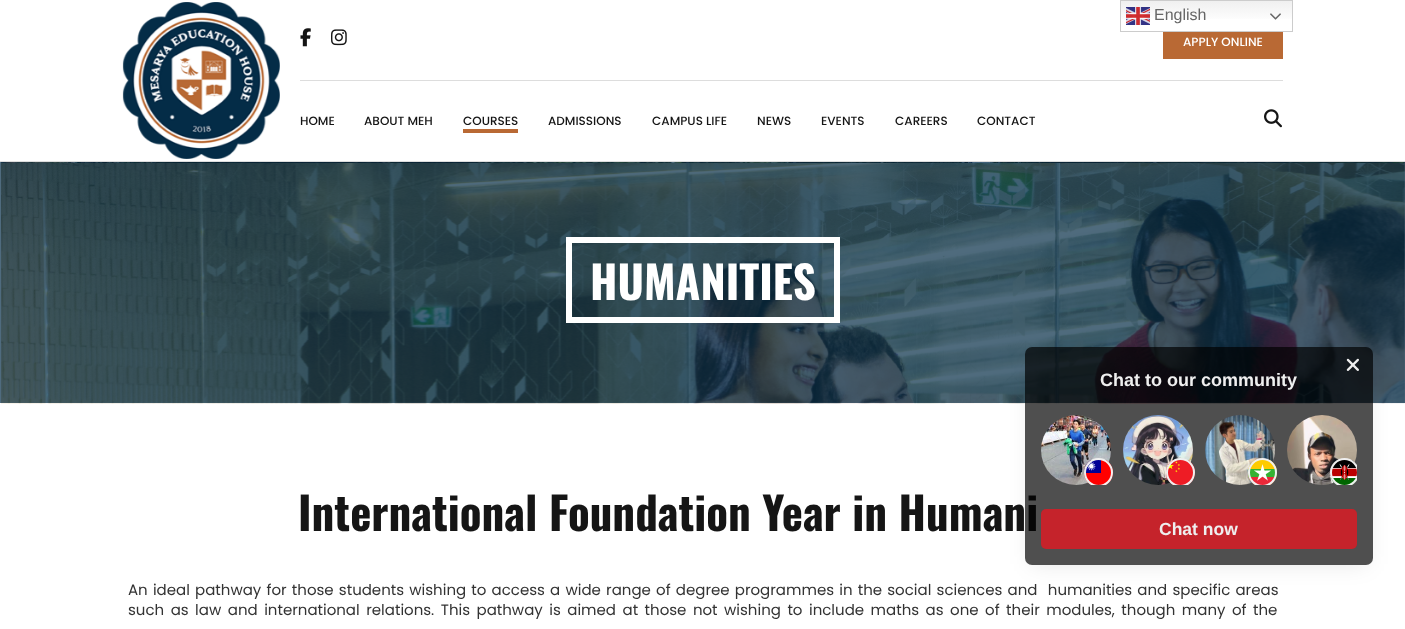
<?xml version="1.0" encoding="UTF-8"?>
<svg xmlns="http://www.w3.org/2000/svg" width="1405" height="629">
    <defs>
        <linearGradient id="g1" gradientUnits="userSpaceOnUse" x1="1207" y1="0" x2="1207" y2="32"><stop offset="0" stop-color="#EFEFEF"/><stop offset="0.7" stop-color="#FFFFFF"/></linearGradient>
        <clipPath id="clip1"><path d="M 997 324 H 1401 V 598 H 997 Z M 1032 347 H 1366 C 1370 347 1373 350 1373 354 V 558 C 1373 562 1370 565 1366 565 H 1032 C 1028 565 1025 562 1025 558 V 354 C 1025 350 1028 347 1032 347 Z" clip-rule="evenodd"/></clipPath>
        <filter id="blur1" x="-50%" y="-200%" width="200%" height="500%"><feGaussianBlur stdDeviation="11"/></filter>
        <clipPath id="clip2"><rect x="1041" y="415" width="316" height="70"/></clipPath>
    </defs>
    <rect width="100%" height="100%" fill="#FFFFFF"/>
    <rect x="1121" y="1" width="171" height="18" fill="url(#g1)"/>
    <rect x="1120.5" y="0.5" width="172" height="31" fill="none" stroke="#CCCCCC"/>
    <image x="1126" y="7" width="24" height="18" href="img_01.png"/>
    <text x="1154" y="20" font-family="Liberation Sans" font-size="16" fill="#666666">English</text>
    <image x="1270" y="13" width="11" height="7" href="img_02.png"/>
    <rect x="0" y="161" width="1405" height="1" fill="#DDDDDD"/>
    <image x="122" y="2" width="158" height="157" href="img_03.png"/>
    <image x="300" y="28" width="11" height="19" href="img_04.png"/>
    <image x="331" y="29" width="16" height="17" href="img_05.png"/>
    <rect x="1163" y="32" width="120" height="27" fill="#B96934"/>
    <text x="1183" y="46" font-family="Poppins" font-size="12" font-weight="500" fill="#FFFFFF">APPLY ONLINE</text>
    <rect x="300" y="80" width="983" height="1" fill="#DDDDDD"/>
    <text x="300" y="125" font-family="Poppins" font-size="12" font-weight="500" fill="#151515">HOME</text>
    <text x="364" y="125" font-family="Poppins" font-size="12" font-weight="500" fill="#151515">ABOUT MEH</text>
    <text x="463" y="125" font-family="Poppins" font-size="12" font-weight="500" fill="#151515">COURSES</text>
    <rect x="463" y="129" width="55" height="4" fill="#B96934"/>
    <text x="548" y="125" font-family="Poppins" font-size="12" font-weight="500" fill="#151515">ADMISSIONS</text>
    <text x="652" y="125" font-family="Poppins" font-size="12" font-weight="500" fill="#151515">CAMPUS LIFE</text>
    <text x="757" y="125" font-family="Poppins" font-size="12" font-weight="500" fill="#151515">NEWS</text>
    <text x="821" y="125" font-family="Poppins" font-size="12" font-weight="500" fill="#151515">EVENTS</text>
    <text x="895" y="125" font-family="Poppins" font-size="12" font-weight="500" fill="#151515">CAREERS</text>
    <text x="977" y="125" font-family="Poppins" font-size="12" font-weight="500" fill="#151515">CONTACT</text>
    <image x="1264" y="109" width="18" height="19" href="img_06.png"/>
    <rect x="0" y="162" width="1405" height="241" fill="#4F6B7E"/>
    <image x="1" y="162" width="1404" height="242" href="img_07.png"/>
    <rect x="569" y="240" width="268" height="80" fill="none" stroke="#FFFFFF" stroke-width="6"/>
    <text x="590" y="300" font-family="Oswald" font-size="45" font-weight="700" fill="#FFFFFF">HUMANITIES</text>
    <text x="298" y="531" font-family="Oswald" font-size="45" font-weight="700" fill="#151515">International Foundation Year in Humani</text>
    <text font-family="Poppins" font-size="15" fill="#333333" xml:space="preserve"><tspan x="128" y="595" word-spacing="1.2">An ideal pathway for those students wishing to access a wide range of degree programmes in the social sciences and  humanities and specific areas</tspan><tspan x="128" y="615" word-spacing="2.5">such as law and international relations. This pathway is aimed at those not wishing to include maths as one of their modules, though many of the</tspan></text>
    <g clip-path="url(#clip1)">
        <rect x="1031" y="358" width="336" height="206" rx="1" fill="#000000" fill-opacity="0.1" filter="url(#blur1)"/>
    </g>
    <rect x="1025" y="347" width="348" height="218" rx="7" fill="#000000" fill-opacity="0.69"/>
    <image x="1346" y="358" width="13" height="13" href="img_08.png"/>
    <text x="1100" y="386" font-family="Liberation Sans" font-size="18" font-weight="700" fill="#EFEFEF">Chat to our community</text>
    <image x="1041" y="415" width="70" height="70" href="img_09.png"/>
    <image x="1084" y="460" width="29" height="25" href="img_10.png"/>
    <g clip-path="url(#clip2)">
        <circle cx="1098.5" cy="472.5" r="13.5" fill="none" stroke="#EFEFEF" stroke-width="2"/>
    </g>
    <image x="1123" y="415" width="70" height="70" href="img_11.png"/>
    <image x="1166" y="460" width="29" height="25" href="img_12.png"/>
    <g clip-path="url(#clip2)">
        <circle cx="1180.5" cy="472.5" r="13.5" fill="none" stroke="#EFEFEF" stroke-width="2"/>
    </g>
    <image x="1205" y="415" width="70" height="70" href="img_13.png"/>
    <image x="1248" y="460" width="29" height="25" href="img_14.png"/>
    <g clip-path="url(#clip2)">
        <circle cx="1262.5" cy="472.5" r="13.5" fill="none" stroke="#EFEFEF" stroke-width="2"/>
    </g>
    <image x="1287" y="415" width="70" height="70" href="img_15.png"/>
    <image x="1330" y="460" width="27" height="25" href="img_16.png"/>
    <g clip-path="url(#clip2)">
        <circle cx="1344.5" cy="472.5" r="13.5" fill="none" stroke="#EFEFEF" stroke-width="2"/>
    </g>
    <rect x="1041" y="509" width="316" height="40" rx="5" fill="#D21E27" fill-opacity="0.9"/>
    <text x="1159" y="535" font-family="Liberation Sans" font-size="17.5" font-weight="700" fill="#EFEFEF">Chat now</text>
</svg>
